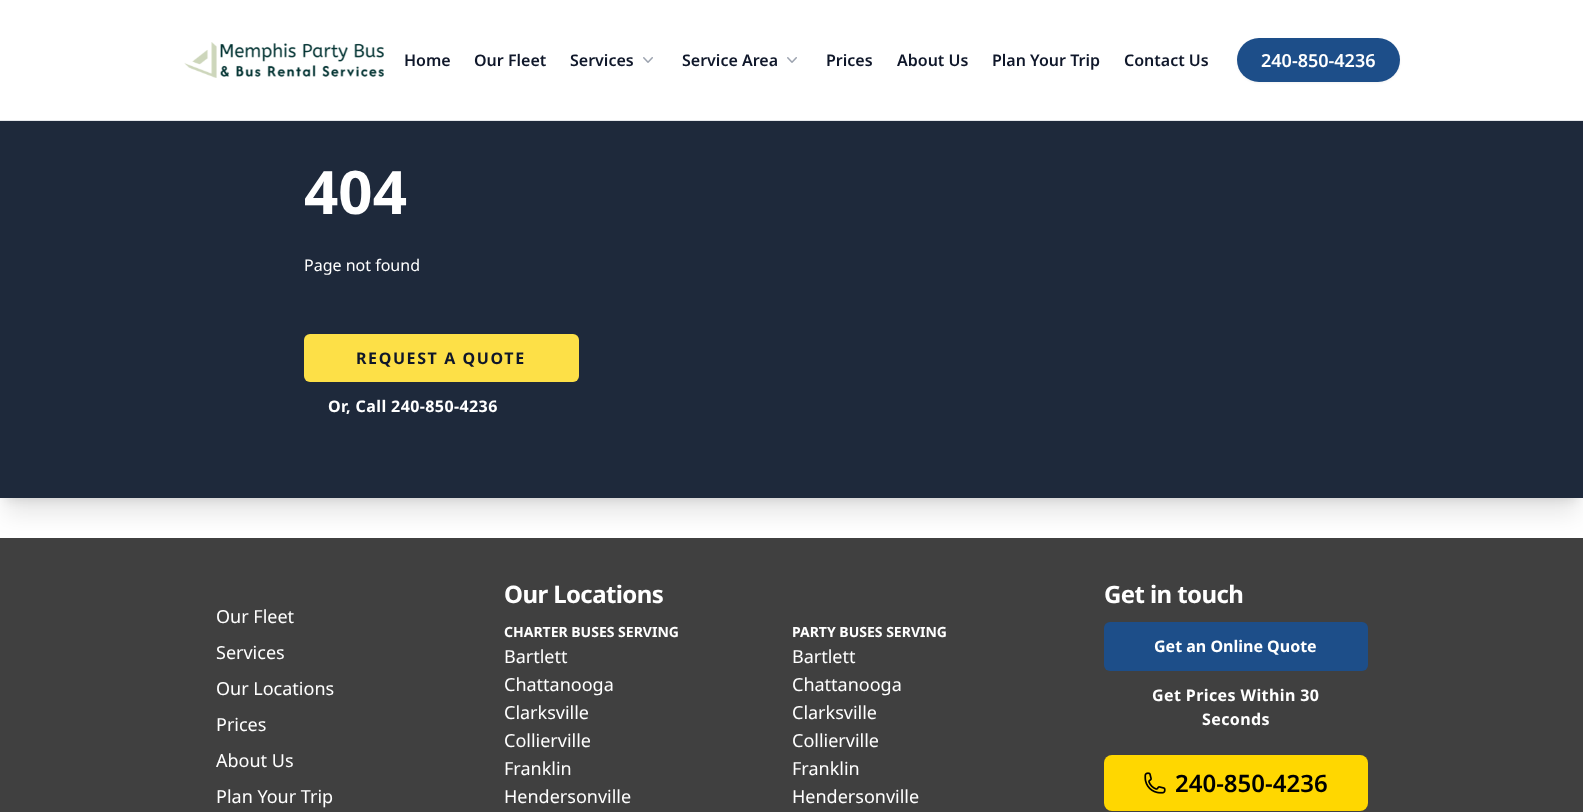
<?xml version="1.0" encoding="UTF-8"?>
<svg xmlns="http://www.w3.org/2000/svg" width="1583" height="812">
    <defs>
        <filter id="blur1" x="-50%" y="-200%" width="200%" height="500%"><feGaussianBlur stdDeviation="5"/></filter>
        <filter id="blur2" x="-50%" y="-200%" width="200%" height="500%"><feGaussianBlur stdDeviation="12.5"/></filter>
        <filter id="blur3" x="-50%" y="-200%" width="200%" height="500%"><feGaussianBlur stdDeviation="1"/></filter>
    </defs>
    <rect width="100%" height="100%" fill="#FFFFFF"/>
    <rect x="6" y="135" width="1571" height="365" fill="#000000" fill-opacity="0.1" filter="url(#blur1)"/>
    <rect x="0" y="538" width="1583" height="274" fill="#404040"/>
    <rect x="5" y="146" width="1573" height="367" fill="#000000" fill-opacity="0.1" filter="url(#blur2)"/>
    <rect x="0" y="120" width="1583" height="1" fill="#E5E7EB"/>
    <image x="184" y="42" width="200" height="36" href="img_01.png"/>
    <text x="404" y="66" font-family="Noto Sans" font-size="16" font-weight="600" fill="#0F172A">Home</text>
    <text x="474" y="66" font-family="Noto Sans" font-size="16" font-weight="600" fill="#0F172A">Our Fleet</text>
    <text x="570" y="66" font-family="Noto Sans" font-size="16" font-weight="600" fill="#0F172A">Services</text>
    <image x="643" y="57" width="10" height="6" href="img_02.png"/>
    <text x="682" y="66" font-family="Noto Sans" font-size="16" font-weight="600" fill="#0F172A">Service Area</text>
    <image x="787" y="57" width="10" height="6" href="img_02.png"/>
    <text x="826" y="66" font-family="Noto Sans" font-size="16" font-weight="600" fill="#0F172A">Prices</text>
    <text x="897" y="66" font-family="Noto Sans" font-size="16" font-weight="600" fill="#0F172A">About Us</text>
    <text x="992" y="66" font-family="Noto Sans" font-size="16" font-weight="600" fill="#0F172A">Plan Your Trip</text>
    <text x="1124" y="66" font-family="Noto Sans" font-size="16" font-weight="600" fill="#0F172A">Contact Us</text>
    <rect x="1237" y="39" width="163" height="44" rx="22" fill="#000000" fill-opacity="0.05" filter="url(#blur3)"/>
    <rect x="1237" y="38" width="163" height="44" rx="22" fill="#1D4E89"/>
    <text x="1261" y="67" font-family="Noto Sans" font-size="18" font-weight="600" fill="#FFFFFF">240-850-4236</text>
    <rect x="0" y="121" width="1583" height="377" fill="#1E293B"/>
    <text x="304" y="214" font-family="Noto Sans" font-size="60" font-weight="700" fill="#FFFFFF">404</text>
    <text x="304" y="271" font-family="Noto Sans" font-size="16" fill="#FFFFFF">Page not found</text>
    <rect x="304" y="334" width="275" height="48" rx="6" fill="#FDE047"/>
    <text x="356" y="364" font-family="Noto Sans" font-size="16" font-weight="700" letter-spacing="1.6" fill="#0F172A">REQUEST A QUOTE</text>
    <text x="328" y="412" font-family="Noto Sans" font-size="16" font-weight="700" letter-spacing="0.4" fill="#FFFFFF">Or, Call 240-850-4236</text>
    <text x="216" y="623" font-family="Noto Sans" font-size="18" fill="#FFFFFF">Our Fleet</text>
    <text x="216" y="659" font-family="Noto Sans" font-size="18" fill="#FFFFFF">Services</text>
    <text x="216" y="695" font-family="Noto Sans" font-size="18" fill="#FFFFFF">Our Locations</text>
    <text x="216" y="731" font-family="Noto Sans" font-size="18" fill="#FFFFFF">Prices</text>
    <text x="216" y="767" font-family="Noto Sans" font-size="18" fill="#FFFFFF">About Us</text>
    <text x="216" y="803" font-family="Noto Sans" font-size="18" fill="#FFFFFF">Plan Your Trip</text>
    <text x="504" y="603" font-family="Noto Sans" font-size="24" font-weight="700" letter-spacing="-0.6" fill="#FFFFFF">Our Locations</text>
    <text x="504" y="637" font-family="Noto Sans" font-size="14" font-weight="700" fill="#FFFFFF">CHARTER BUSES SERVING</text>
    <text font-family="Noto Sans" font-size="18" fill="#FFFFFF">
        <tspan x="504" y="663">Bartlett</tspan>
        <tspan x="504" y="691">Chattanooga</tspan>
        <tspan x="504" y="719">Clarksville</tspan>
        <tspan x="504" y="747">Collierville</tspan>
        <tspan x="504" y="775">Franklin</tspan>
        <tspan x="504" y="803">Hendersonville</tspan>
    </text>
    <text x="792" y="637" font-family="Noto Sans" font-size="14" font-weight="700" fill="#FFFFFF">PARTY BUSES SERVING</text>
    <text font-family="Noto Sans" font-size="18" fill="#FFFFFF">
        <tspan x="792" y="663">Bartlett</tspan>
        <tspan x="792" y="691">Chattanooga</tspan>
        <tspan x="792" y="719">Clarksville</tspan>
        <tspan x="792" y="747">Collierville</tspan>
        <tspan x="792" y="775">Franklin</tspan>
        <tspan x="792" y="803">Hendersonville</tspan>
    </text>
    <text x="1104" y="603" font-family="Noto Sans" font-size="24" font-weight="700" letter-spacing="-0.6" fill="#FFFFFF">Get in touch</text>
    <rect x="1104" y="622" width="264" height="49" rx="6" fill="#1D4E89"/>
    <text x="1154" y="652" font-family="Noto Sans" font-size="16" font-weight="700" fill="#FFFFFF">Get an Online Quote</text>
    <text x="1152" y="701" font-family="Noto Sans" font-size="16" font-weight="700" letter-spacing="0.4" fill="#FFFFFF">Get Prices Within 30</text>
    <text x="1202" y="725" font-family="Noto Sans" font-size="16" font-weight="700" letter-spacing="0.4" fill="#FFFFFF">Seconds</text>
    <rect x="1104" y="755" width="264" height="56" rx="8" fill="#FFD700"/>
    <image x="1144" y="772" width="22" height="22" href="img_03.png"/>
    <text x="1175" y="792" font-family="Noto Sans" font-size="24" font-weight="600" fill="#000000">240-850-4236</text>
</svg>
